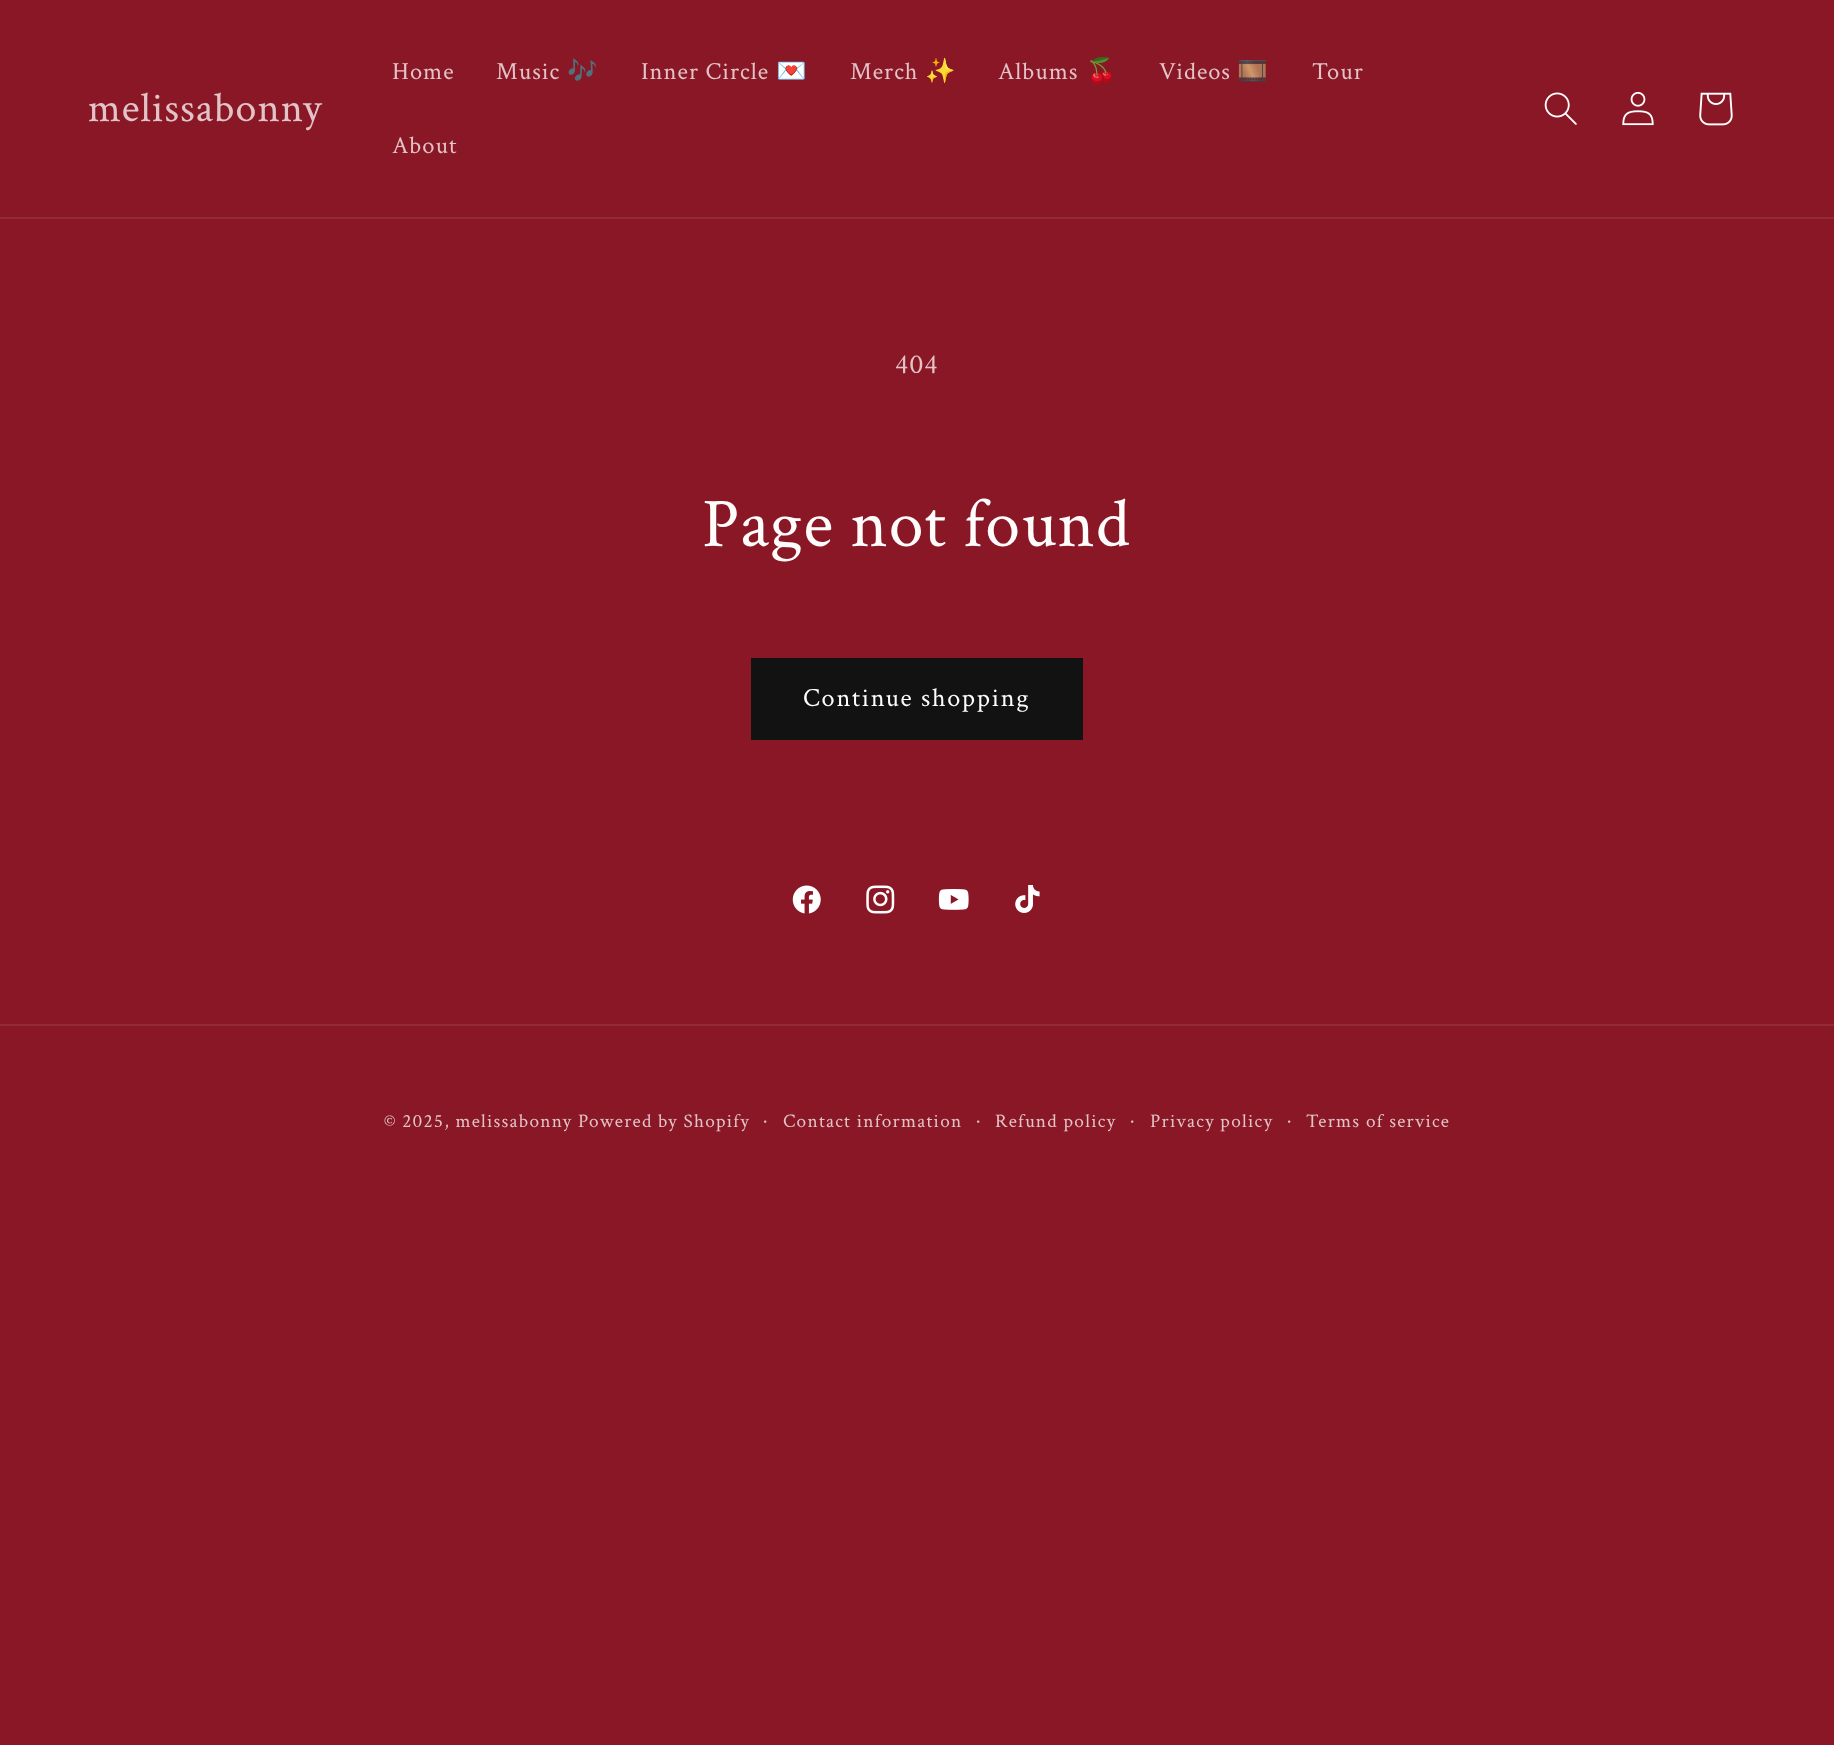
<?xml version="1.0" encoding="UTF-8"?>
<svg xmlns="http://www.w3.org/2000/svg" width="1834" height="1745">
    <rect width="100%" height="100%" fill="#891726"/>
    <rect x="0" y="217" width="1834" height="2" fill="#922A37"/>
    <text x="88" y="121" font-family="Crimson Text" font-size="42" letter-spacing="1" fill="#E2C3C7">melissabonny</text>
    <text x="392" y="79" font-family="Crimson Text" font-size="24.5" letter-spacing="1" fill="#E2C3C7">Home</text>
    <text x="496" y="79" font-family="Crimson Text" font-size="24.5" letter-spacing="1" fill="#E2C3C7">Music</text>
    <text x="567" y="79" font-family="Noto Color Emoji" font-size="24.5" letter-spacing="1" fill="#E2C3C7">🎶</text>
    <text x="641" y="79" font-family="Crimson Text" font-size="24.5" letter-spacing="1" fill="#E2C3C7">Inner Circle</text>
    <text x="776" y="79" font-family="Noto Color Emoji" font-size="24.5" letter-spacing="1" fill="#E2C3C7">💌</text>
    <text x="850" y="79" font-family="Crimson Text" font-size="24.5" letter-spacing="1" fill="#E2C3C7">Merch</text>
    <text x="925" y="79" font-family="Noto Color Emoji" font-size="24.5" letter-spacing="1" fill="#E2C3C7">✨</text>
    <text x="998" y="79" font-family="Crimson Text" font-size="24.5" letter-spacing="1" fill="#E2C3C7">Albums</text>
    <text x="1086" y="79" font-family="Noto Color Emoji" font-size="24.5" letter-spacing="1" fill="#E2C3C7">🍒</text>
    <text x="1159" y="79" font-family="Crimson Text" font-size="24.5" letter-spacing="1" fill="#E2C3C7">Videos</text>
    <text x="1237" y="79" font-family="Noto Color Emoji" font-size="24.5" letter-spacing="1" fill="#E2C3C7">🎞️</text>
    <text x="1312" y="79" font-family="Crimson Text" font-size="24.5" letter-spacing="1" fill="#E2C3C7">Tour</text>
    <text x="392" y="153" font-family="Crimson Text" font-size="24.5" letter-spacing="1" fill="#E2C3C7">About</text>
    <image x="1544" y="92" width="33" height="33" href="img_01.png"/>
    <image x="1622" y="91" width="32" height="35" href="img_02.png"/>
    <image x="1699" y="92" width="34" height="34" href="img_03.png"/>
    <text x="895" y="373" font-family="Crimson Text" font-size="28" letter-spacing="1" fill="#E2C3C7">404</text>
    <text x="702" y="546" font-family="Crimson Text" font-size="70" letter-spacing="1" fill="#FFFCFC">Page not found</text>
    <rect x="751" y="658" width="332" height="82" fill="#121212"/>
    <text x="803" y="706" font-family="Crimson Text" font-size="26.25" letter-spacing="1.75" fill="#FFFCFC">Continue shopping</text>
    <image x="792" y="885" width="29" height="29" href="img_04.png"/>
    <image x="866" y="885" width="29" height="29" href="img_05.png"/>
    <image x="938" y="889" width="31" height="21" href="img_06.png"/>
    <image x="1015" y="885" width="25" height="28" href="img_07.png"/>
    <rect x="0" y="1024" width="1834" height="2" fill="#922A37"/>
    <text x="384" y="1127" font-family="Crimson Text" font-size="19.25" letter-spacing="1.25" fill="#E2C3C7">© 2025, melissabonny</text>
    <text x="578" y="1127" font-family="Crimson Text" font-size="19.25" letter-spacing="1.25" fill="#E2C3C7">Powered by Shopify</text>
    <text x="763" y="1127" font-family="Crimson Text" font-size="21" letter-spacing="1.25" fill="#E2C3C7">·</text>
    <text x="783" y="1127" font-family="Crimson Text" font-size="19.25" letter-spacing="1.25" fill="#E2C3C7">Contact information</text>
    <text x="976" y="1127" font-family="Crimson Text" font-size="21" letter-spacing="1.25" fill="#E2C3C7">·</text>
    <text x="995" y="1127" font-family="Crimson Text" font-size="19.25" letter-spacing="1.25" fill="#E2C3C7">Refund policy</text>
    <text x="1130" y="1127" font-family="Crimson Text" font-size="21" letter-spacing="1.25" fill="#E2C3C7">·</text>
    <text x="1150" y="1127" font-family="Crimson Text" font-size="19.25" letter-spacing="1.25" fill="#E2C3C7">Privacy policy</text>
    <text x="1287" y="1127" font-family="Crimson Text" font-size="21" letter-spacing="1.25" fill="#E2C3C7">·</text>
    <text x="1306" y="1127" font-family="Crimson Text" font-size="19.25" letter-spacing="1.25" fill="#E2C3C7">Terms of service</text>
</svg>
